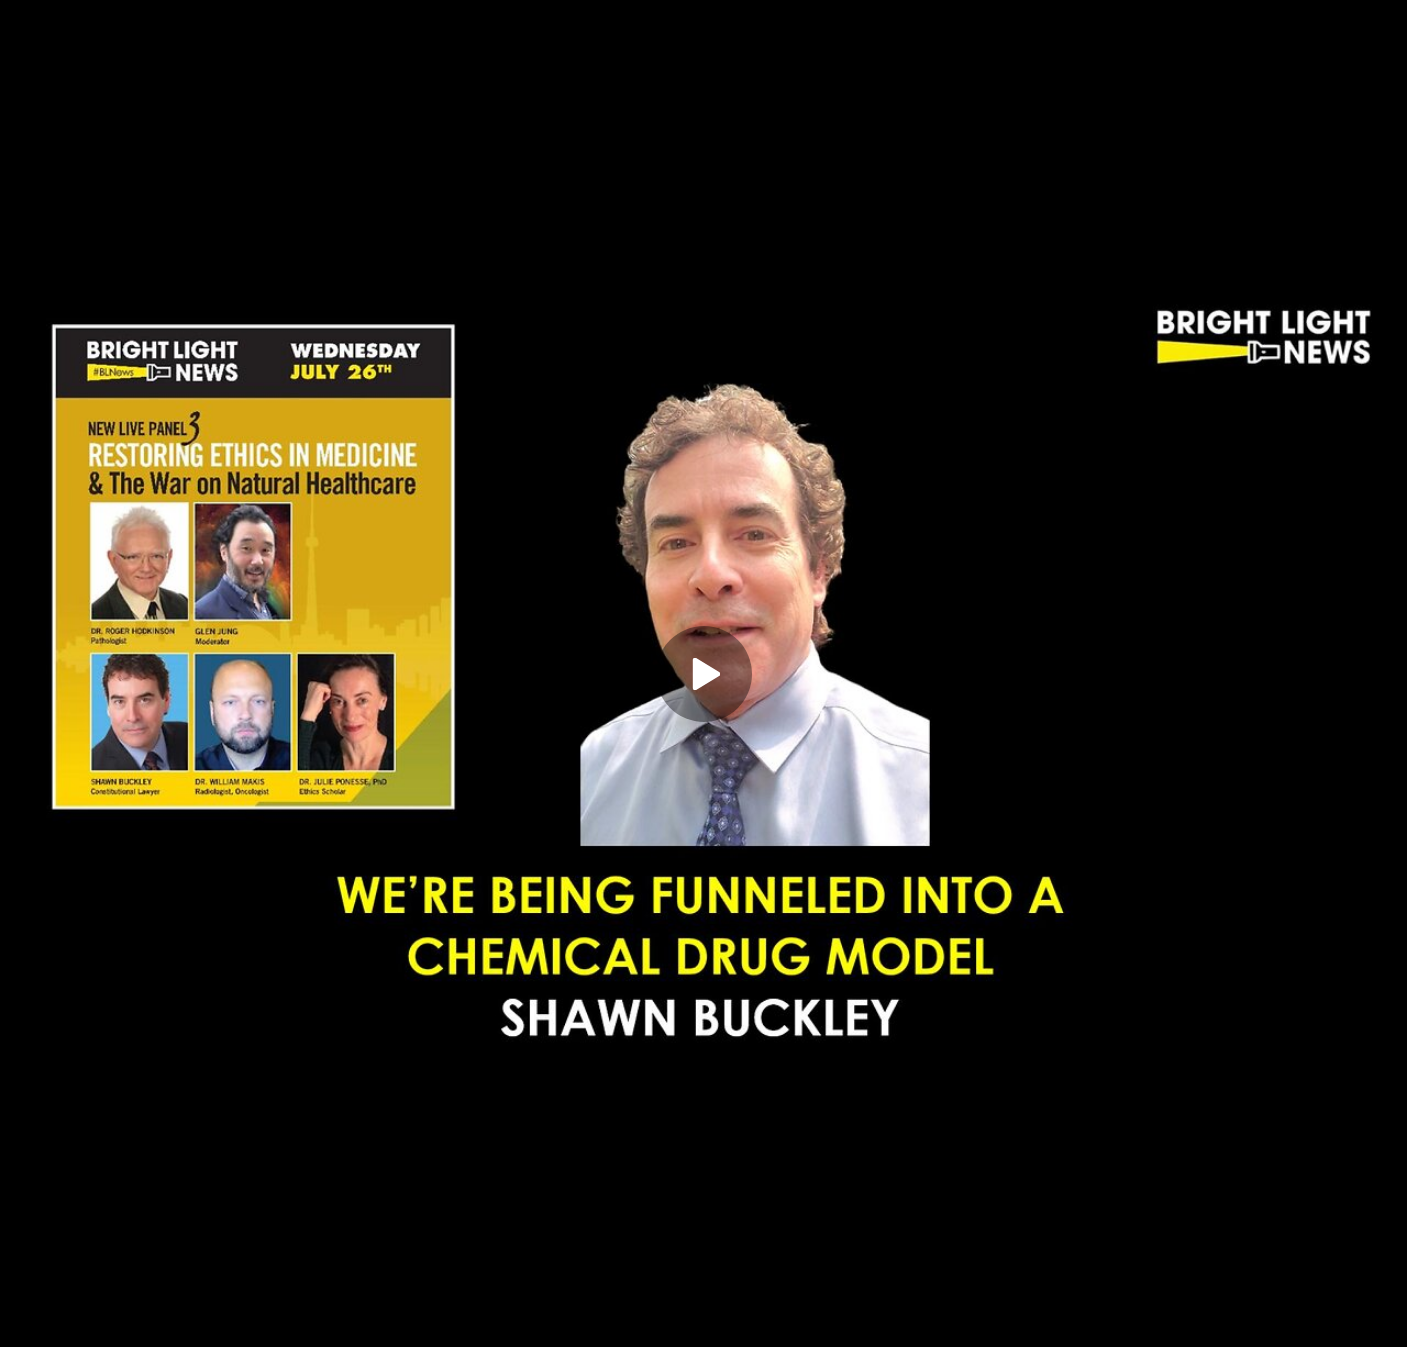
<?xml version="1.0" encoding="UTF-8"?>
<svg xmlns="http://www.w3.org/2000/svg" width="1407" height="1347">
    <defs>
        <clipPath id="clip1"><rect x="688" y="658" width="32" height="32"/></clipPath>
    </defs>
    <rect width="100%" height="100%" fill="#000000"/>
    <image x="46" y="304" width="1326" height="739" href="img_01.png"/>
    <circle cx="704" cy="674" r="48" fill="#000000" fill-opacity="0.4"/>
    <path d="M 718 674 L 695 660 V 688 Z" fill="#FFFFFF"/>
    <g clip-path="url(#clip1)">
        <path d="M 718 674 L 695 660 V 688 Z" fill="none" stroke="#FFFFFF" stroke-width="4.4" stroke-linejoin="round"/>
    </g>
</svg>
